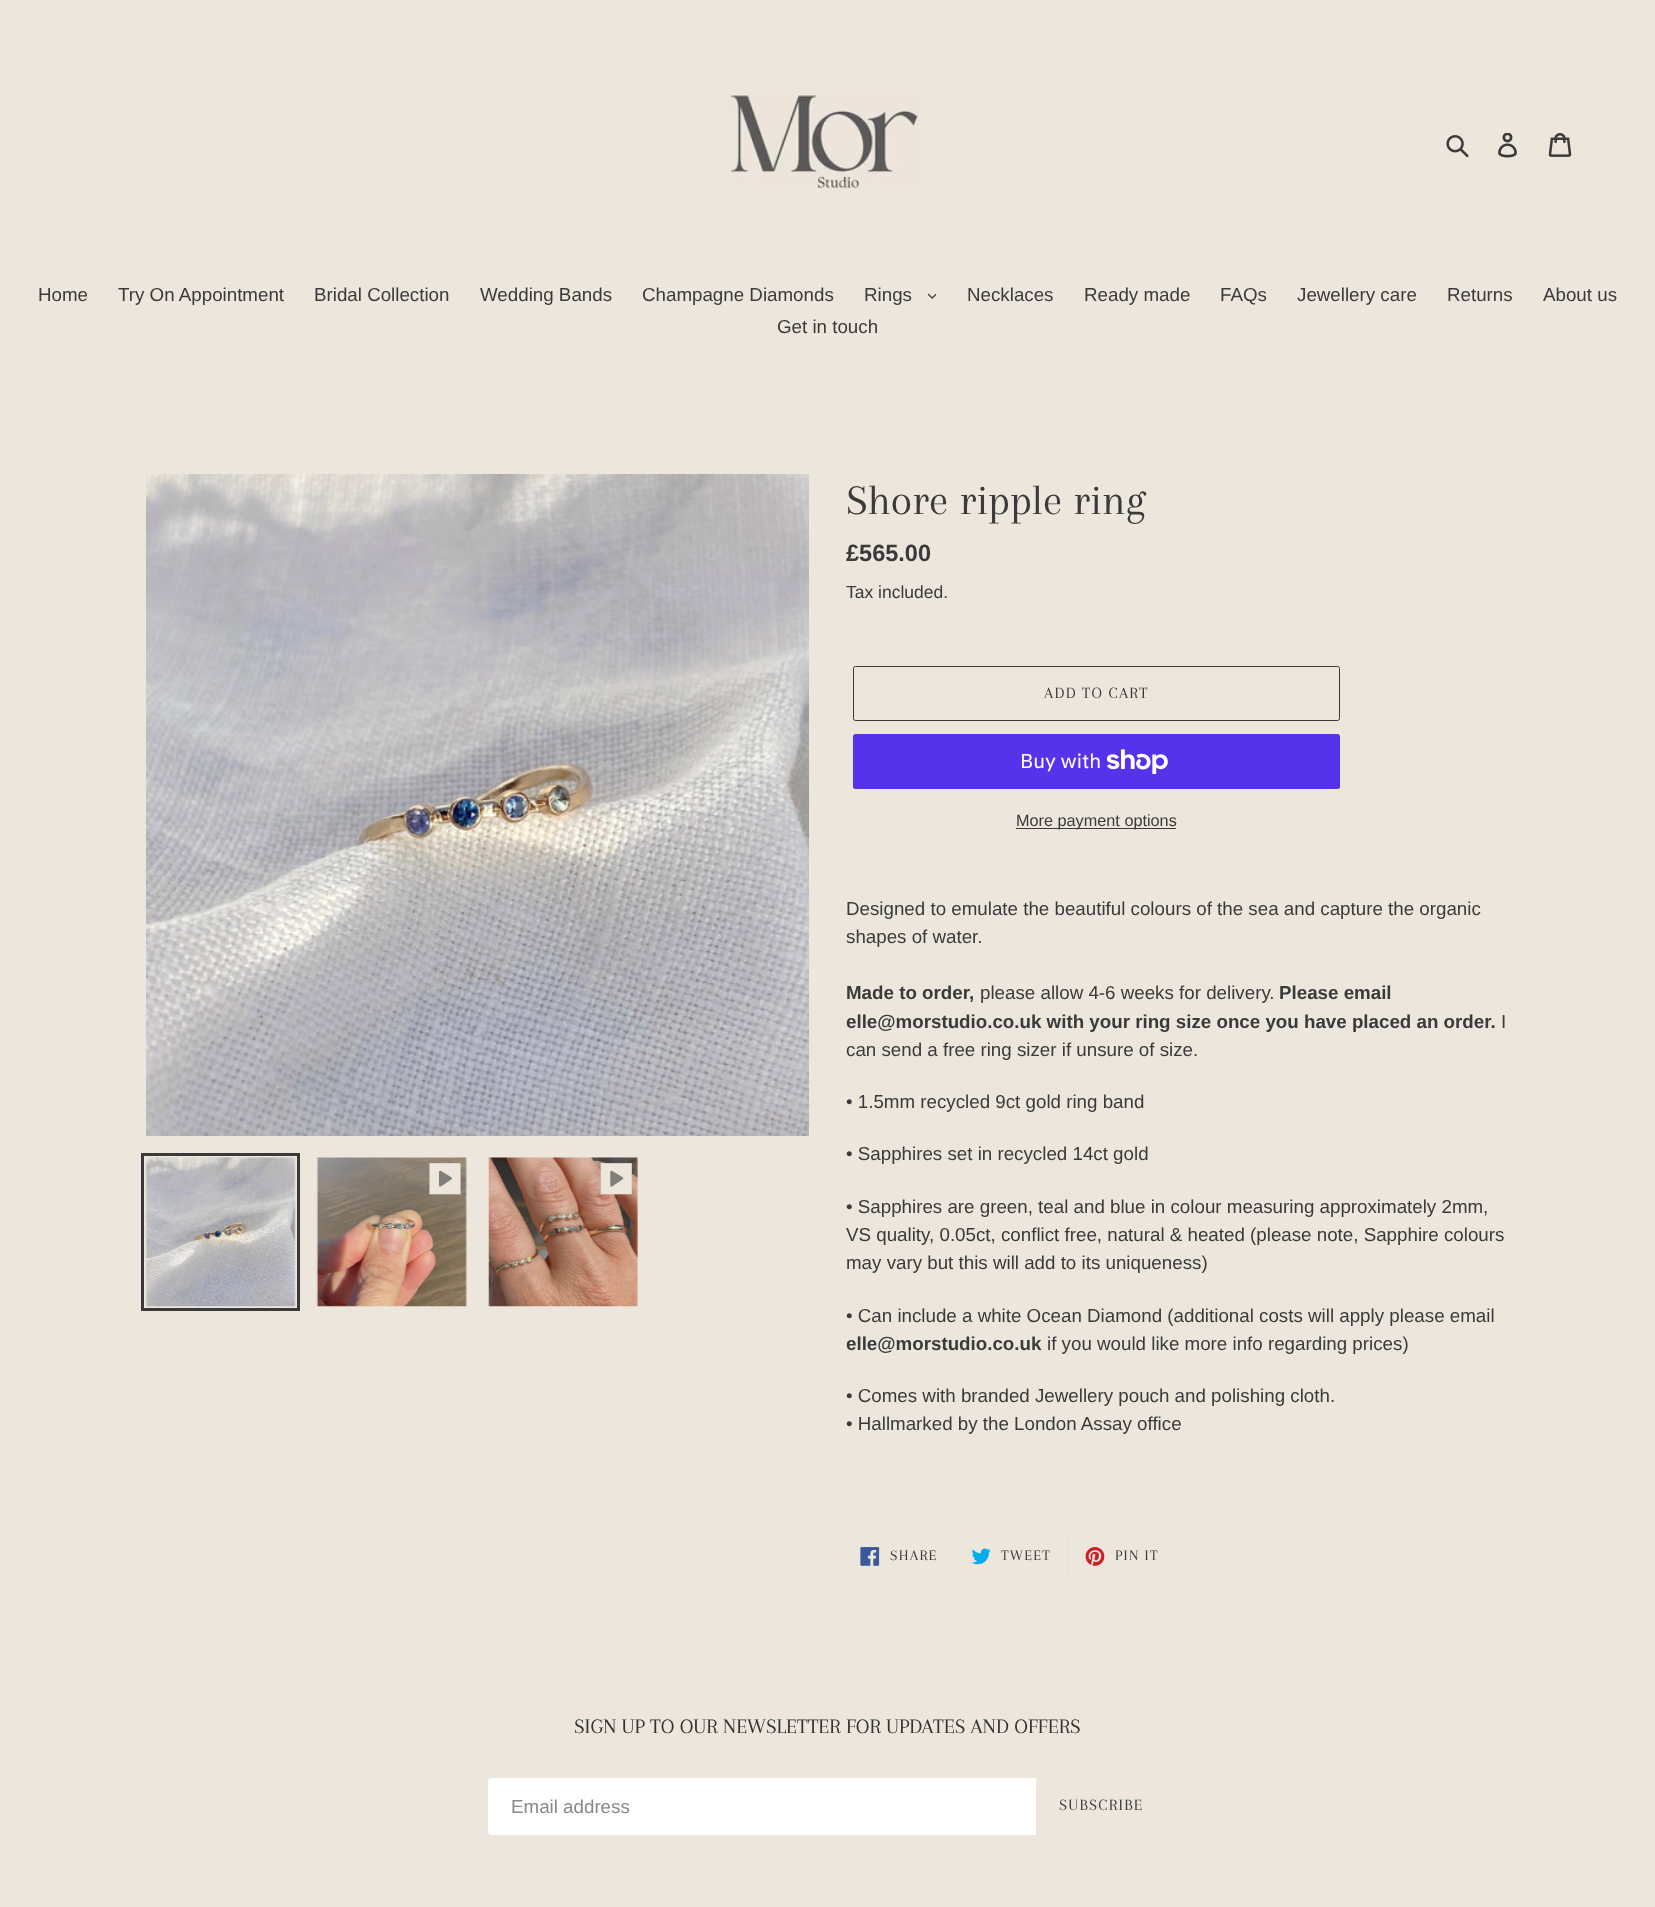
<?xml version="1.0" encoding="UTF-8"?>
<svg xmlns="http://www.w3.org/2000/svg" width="1655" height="1907">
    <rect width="100%" height="100%" fill="#EDE6DC"/>
    <image x="730" y="94" width="189" height="95" href="img_01.png"/>
    <image x="1446" y="135" width="23" height="23" href="img_02.png"/>
    <image x="1498" y="133" width="19" height="25" href="img_03.png"/>
    <image x="1548" y="133" width="24" height="24" href="img_04.png"/>
    <rect x="0" y="404" width="1655" height="1" fill="#EBEBEB"/>
    <text x="38" y="301" font-family="Liberation Sans" font-size="18.75" fill="#3A3A3A">Home</text>
    <text x="118" y="301" font-family="Liberation Sans" font-size="18.75" fill="#3A3A3A">Try On Appointment</text>
    <text x="314" y="301" font-family="Liberation Sans" font-size="18.75" fill="#3A3A3A">Bridal Collection</text>
    <text x="480" y="301" font-family="Liberation Sans" font-size="18.75" fill="#3A3A3A">Wedding Bands</text>
    <text x="642" y="301" font-family="Liberation Sans" font-size="18.75" fill="#3A3A3A">Champagne Diamonds</text>
    <text x="864" y="301" font-family="Liberation Sans" font-size="18.75" fill="#3A3A3A">Rings</text>
    <image x="928" y="293" width="8" height="6" href="img_05.png"/>
    <text x="967" y="301" font-family="Liberation Sans" font-size="18.75" fill="#3A3A3A">Necklaces</text>
    <text x="1084" y="301" font-family="Liberation Sans" font-size="18.75" fill="#3A3A3A">Ready made</text>
    <text x="1220" y="301" font-family="Liberation Sans" font-size="18.75" fill="#3A3A3A">FAQs</text>
    <text x="1297" y="301" font-family="Liberation Sans" font-size="18.75" fill="#3A3A3A">Jewellery care</text>
    <text x="1447" y="301" font-family="Liberation Sans" font-size="18.75" fill="#3A3A3A">Returns</text>
    <text x="1543" y="301" font-family="Liberation Sans" font-size="18.75" fill="#3A3A3A">About us</text>
    <text x="777" y="333" font-family="Liberation Sans" font-size="18.75" fill="#3A3A3A">Get in touch</text>
    <image x="146" y="474" width="663" height="662" href="img_06.png"/>
    <rect x="142.5" y="1154.5" width="156" height="155" fill="none" stroke="#3A3A3A" stroke-width="3"/>
    <image x="145" y="1157" width="151" height="150" href="img_07.png"/>
    <image x="316" y="1157" width="151" height="150" href="img_08.png"/>
    <image x="429" y="1163" width="32" height="32" href="img_09.png"/>
    <image x="488" y="1157" width="150" height="150" href="img_10.png"/>
    <image x="600" y="1163" width="32" height="32" href="img_11.png"/>
    <text x="846" y="514" font-family="Arapey" font-size="43.75" fill="#3A3A3A">Shore ripple ring</text>
    <text x="846" y="561" font-family="Liberation Sans" font-size="23.5" font-weight="700" fill="#3A3A3A">£565.00</text>
    <text x="846" y="598" font-family="Liberation Sans" font-size="17.5" fill="#3A3A3A">Tax included.</text>
    <rect x="853.5" y="666.5" width="486" height="54" rx="2" fill="none" stroke="#3A3A3A"/>
    <text x="1044" y="698" font-family="Arapey" font-size="16.25" letter-spacing="1.25" fill="#3A3A3A">ADD TO CART</text>
    <rect x="853" y="734" width="487" height="55" rx="2.5" fill="#5433EB"/>
    <text x="1020" y="768" font-family="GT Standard" font-size="20" fill="#FFFFFF">Buy with</text>
    <image x="1106" y="749" width="62" height="25" href="img_12.png"/>
    <rect x="1016" y="828" width="160" height="1" fill="#3A3A3A"/>
    <text x="1016" y="826" font-family="Liberation Sans" font-size="16.25" fill="#3A3A3A">More payment options</text>
    <text font-family="Liberation Sans" font-size="18.75" fill="#3A3A3A">
        <tspan x="846" y="915">Designed to emulate the beautiful colours of the sea and capture the organic</tspan>
        <tspan x="846" y="943">shapes of water.</tspan>
    </text>
    <text x="846" y="999" font-family="Liberation Sans" font-size="18.75" font-weight="700" fill="#3A3A3A">Made to order,</text>
    <text x="980" y="999" font-family="Liberation Sans" font-size="18.75" fill="#3A3A3A">please allow 4-6 weeks for delivery.</text>
    <text x="1279" y="999" font-family="Liberation Sans" font-size="18.75" font-weight="700" fill="#3A3A3A">Please email</text>
    <text x="846" y="1028" font-family="Liberation Sans" font-size="18.75" font-weight="700" fill="#3A3A3A">elle@morstudio.co.uk with your ring size once you have placed an order.</text>
    <text x="1501" y="1028" font-family="Liberation Sans" font-size="18.75" fill="#3A3A3A">I</text>
    <text x="846" y="1056" font-family="Liberation Sans" font-size="18.75" fill="#3A3A3A">can send a free ring sizer if unsure of size.</text>
    <text x="846" y="1108" font-family="Liberation Sans" font-size="18.75" fill="#3A3A3A">• 1.5mm recycled 9ct gold ring band</text>
    <text x="846" y="1160" font-family="Liberation Sans" font-size="18.75" fill="#3A3A3A">• Sapphires set in recycled 14ct gold</text>
    <text font-family="Liberation Sans" font-size="18.75" fill="#3A3A3A">
        <tspan x="846" y="1213">• Sapphires are green, teal and blue in colour measuring approximately 2mm,</tspan>
        <tspan x="846" y="1241">VS quality, 0.05ct, conflict free, natural &amp; heated (please note, Sapphire colours</tspan>
        <tspan x="846" y="1269">may vary but this will add to its uniqueness)</tspan>
    </text>
    <text x="846" y="1322" font-family="Liberation Sans" font-size="18.75" fill="#3A3A3A">• Can include a white Ocean Diamond (additional costs will apply please email</text>
    <text x="846" y="1350" font-family="Liberation Sans" font-size="18.75" font-weight="700" fill="#3A3A3A">elle@morstudio.co.uk</text>
    <text x="1047" y="1350" font-family="Liberation Sans" font-size="18.75" fill="#3A3A3A">if you would like more info regarding prices)</text>
    <text font-family="Liberation Sans" font-size="18.75" fill="#3A3A3A">
        <tspan x="846" y="1402">• Comes with branded Jewellery pouch and polishing cloth.</tspan>
        <tspan x="846" y="1430">• Hallmarked by the London Assay office</tspan>
    </text>
    <rect x="846.5" y="1535.5" width="104" height="42" rx="2" fill="none" stroke="#EBEBEB"/>
    <image x="860" y="1547" width="20" height="19" href="img_13.png"/>
    <text x="890" y="1560" font-family="Arapey" font-size="15" letter-spacing="1.25" fill="#3A3A3A">SHARE</text>
    <rect x="958.5" y="1535.5" width="106" height="42" rx="2" fill="none" stroke="#EBEBEB"/>
    <image x="971" y="1548" width="20" height="17" href="img_14.png"/>
    <text x="1001" y="1560" font-family="Arapey" font-size="15" letter-spacing="1.25" fill="#3A3A3A">TWEET</text>
    <rect x="1071.5" y="1535.5" width="99" height="42" rx="2" fill="none" stroke="#EBEBEB"/>
    <image x="1085" y="1547" width="20" height="19" href="img_15.png"/>
    <text x="1115" y="1560" font-family="Arapey" font-size="15" letter-spacing="1.25" fill="#3A3A3A">PIN IT</text>
    <text x="574" y="1733" font-family="Arapey" font-size="21.25" fill="#333232">SIGN UP TO OUR NEWSLETTER FOR UPDATES AND OFFERS</text>
    <path d="M 490.5 1778.5 H 1035.5 V 1834.5 H 490.5 C 489.5 1834.5 488.5 1833.5 488.5 1832.5 V 1780.5 C 488.5 1779.5 489.5 1778.5 490.5 1778.5 Z" fill="#FFFFFF" stroke="#FFFFFF"/>
    <text x="511" y="1813" font-family="Liberation Sans" font-size="18.75" fill="#898989">Email address</text>
    <text x="1059" y="1810" font-family="Arapey" font-size="16.25" letter-spacing="1.25" fill="#3A3A3A">SUBSCRIBE</text>
</svg>
